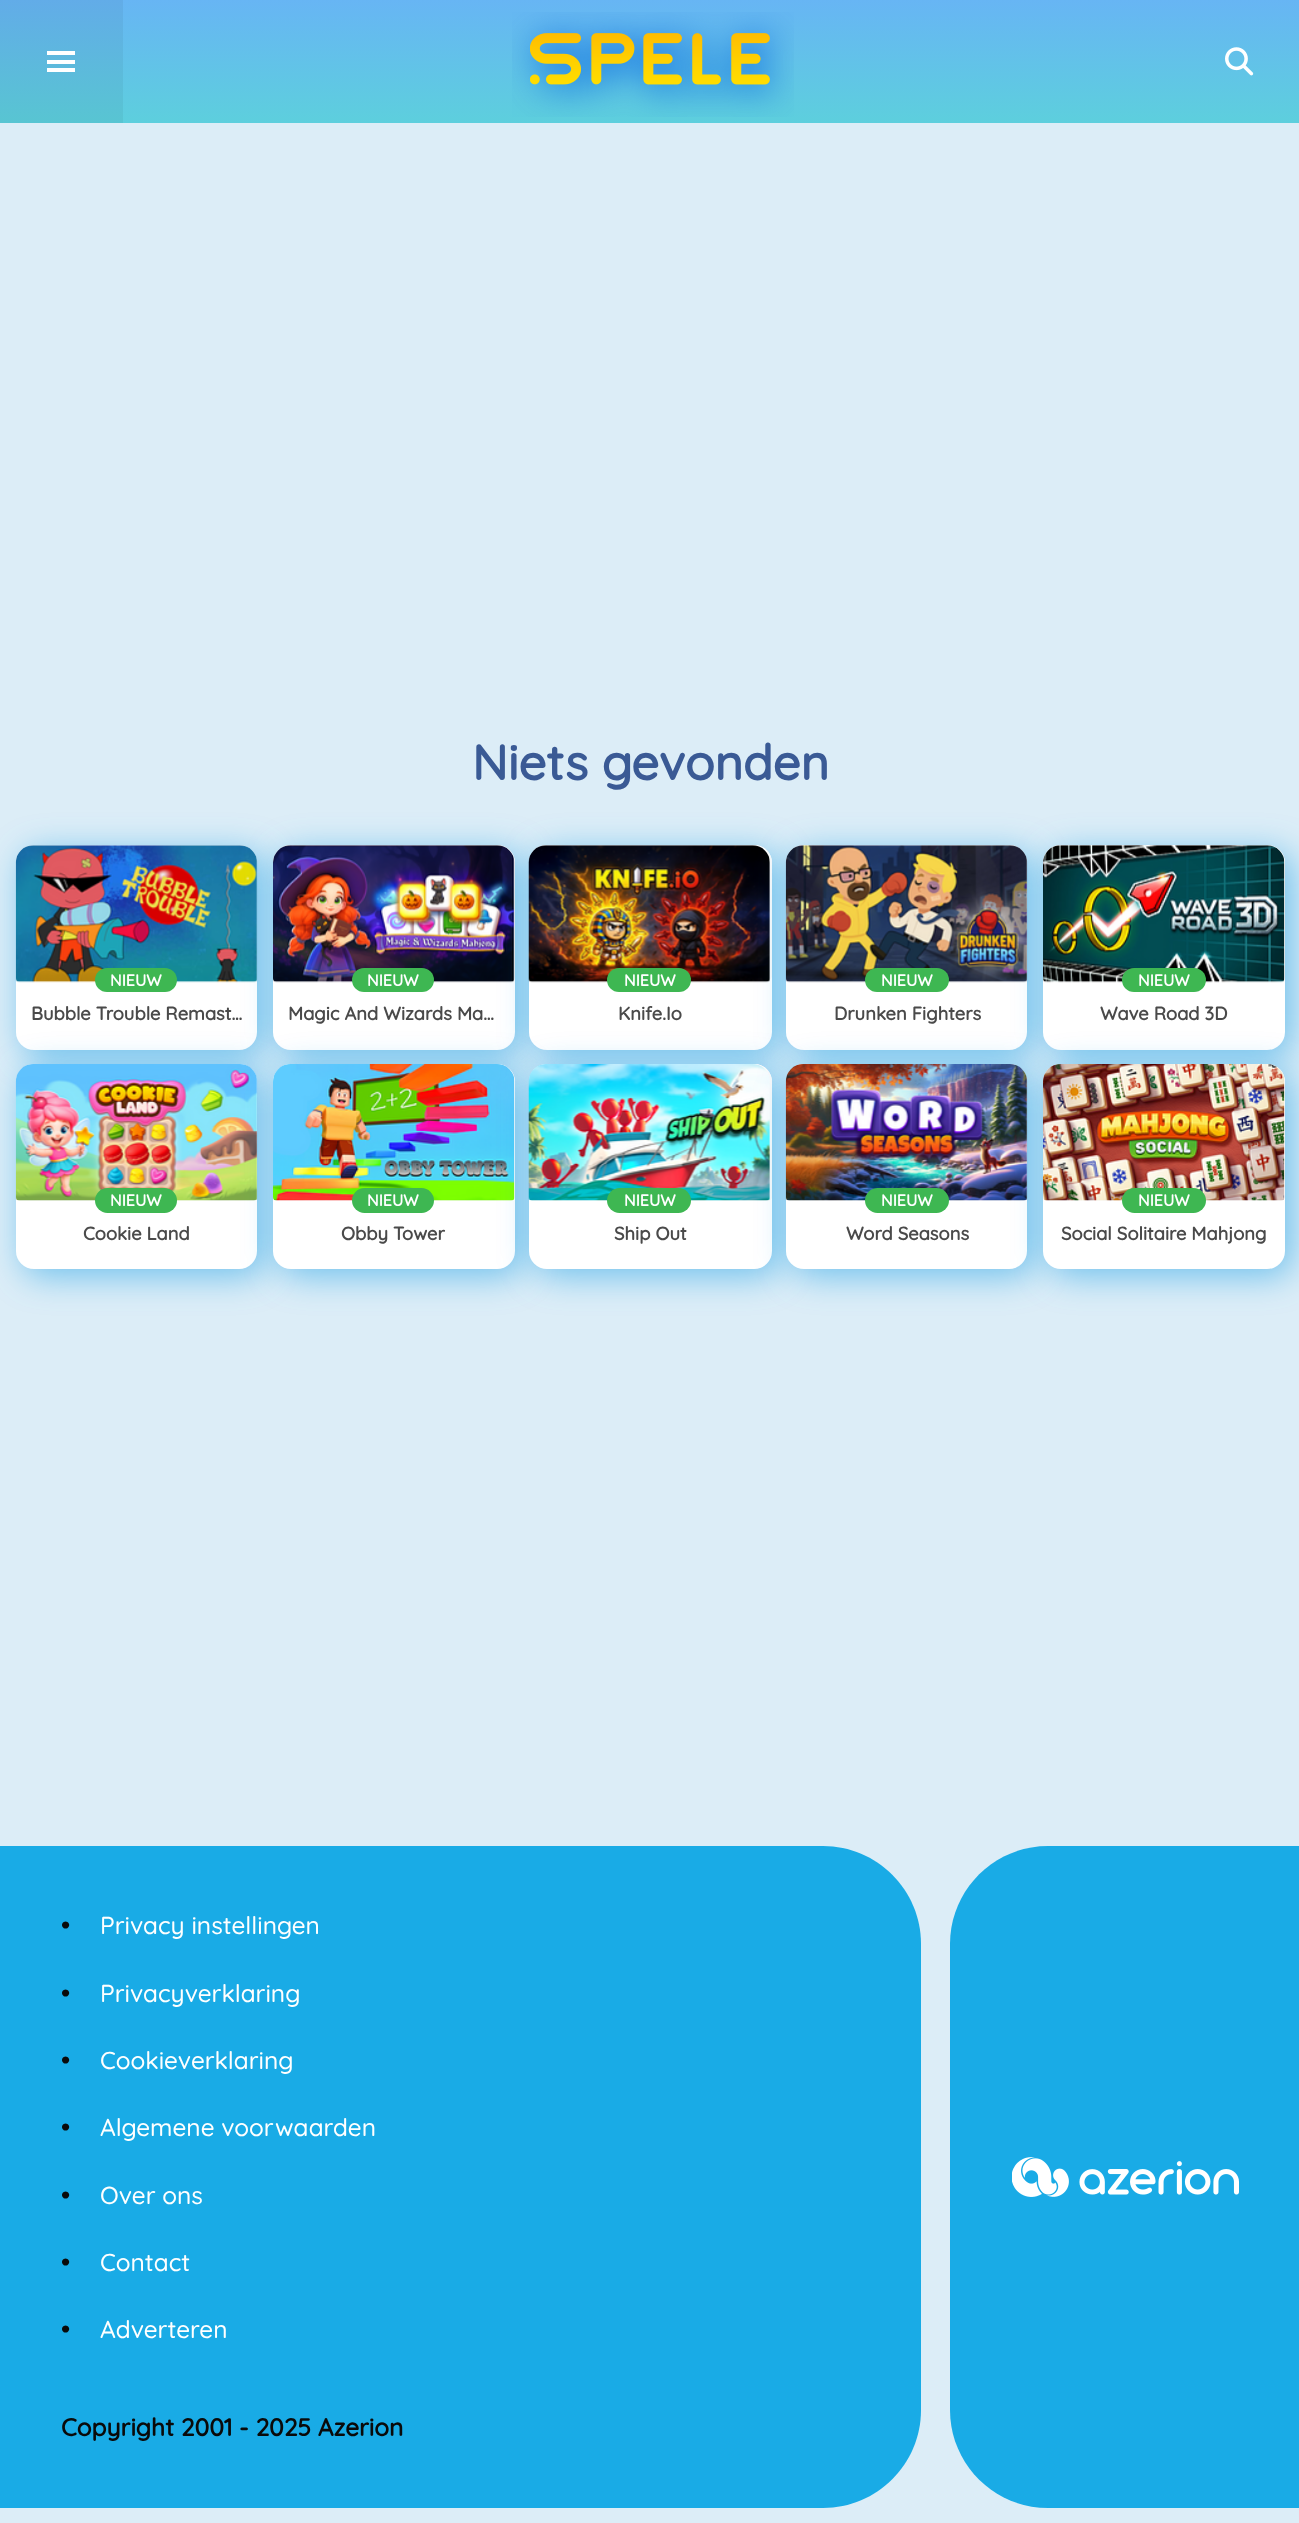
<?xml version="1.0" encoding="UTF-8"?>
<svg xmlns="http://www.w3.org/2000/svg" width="1299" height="2523">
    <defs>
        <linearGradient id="g1" gradientUnits="userSpaceOnUse" x1="650" y1="123" x2="650" y2="0"><stop offset="0" stop-color="#5DCFDD"/><stop offset="1" stop-color="#67B5F4"/></linearGradient>
        <linearGradient id="g2" gradientUnits="userSpaceOnUse" x1="650" y1="123" x2="650" y2="0"><stop offset="0" stop-color="#58C5D2"/><stop offset="1" stop-color="#62ACE8"/></linearGradient>
        <filter id="blur1" x="-50%" y="-200%" width="200%" height="500%"><feGaussianBlur stdDeviation="17.5"/></filter>
    </defs>
    <rect width="100%" height="100%" fill="#DCEDF7"/>
    <rect x="123" y="0" width="1176" height="123" fill="url(#g1)"/>
    <rect x="0" y="0" width="123" height="123" fill="url(#g2)"/>
    <rect x="47" y="51" width="28" height="4" fill="#FFFFFF"/>
    <rect x="47" y="60" width="28" height="4" fill="#FFFFFF"/>
    <rect x="47" y="68" width="28" height="4" fill="#FFFFFF"/>
    <image x="512" y="12" width="282" height="105" href="img_01.png"/>
    <image x="530" y="33" width="240" height="52" href="img_02.png"/>
    <image x="1225" y="47" width="29" height="29" href="img_03.png"/>
    <text x="472" y="780" font-family="Quicksand" font-size="49" font-weight="700" fill="#3A5A95">Niets gevonden</text>
    <rect x="23" y="852" width="241" height="205" rx="18" fill="#0A94E4" fill-opacity="0.5" filter="url(#blur1)"/>
    <rect x="16" y="845" width="241" height="205" rx="18" fill="#FFFFFF"/>
    <path d="M 34 845 H 239 C 249 845 257 853 257 863 V 976 C 257 978 255 980 253 980 H 20 C 18 980 16 978 16 976 V 863 C 16 853 24 845 34 845 Z" fill="#FAFAFA"/>
    <image x="15" y="845" width="243" height="138" href="img_04.png"/>
    <rect x="95" y="968" width="82" height="24" rx="12" fill="#3EB752"/>
    <text x="110" y="986" font-family="Quicksand" font-size="16" font-weight="700" fill="#FFFFFF">NIEUW</text>
    <text x="31" y="1020" font-family="Quicksand" font-size="18.4" font-weight="700" fill="#4A4A4A">Bubble Trouble Remast…</text>
    <rect x="280" y="852" width="242" height="205" rx="18" fill="#0A94E4" fill-opacity="0.5" filter="url(#blur1)"/>
    <rect x="273" y="845" width="242" height="205" rx="18" fill="#FFFFFF"/>
    <path d="M 291 845 H 497 C 507 845 515 853 515 863 V 976 C 515 978 513 980 511 980 H 277 C 275 980 273 978 273 976 V 863 C 273 853 281 845 291 845 Z" fill="#FAFAFA"/>
    <image x="273" y="845" width="242" height="138" href="img_05.png"/>
    <rect x="352" y="968" width="82" height="24" rx="12" fill="#3EB752"/>
    <text x="367" y="986" font-family="Quicksand" font-size="16" font-weight="700" fill="#FFFFFF">NIEUW</text>
    <text x="288" y="1020" font-family="Quicksand" font-size="18.4" font-weight="700" fill="#4A4A4A">Magic And Wizards Ma…</text>
    <rect x="536" y="852" width="243" height="205" rx="18" fill="#0A94E4" fill-opacity="0.5" filter="url(#blur1)"/>
    <rect x="529" y="845" width="243" height="205" rx="18" fill="#FFFFFF"/>
    <path d="M 547 845 H 754 C 764 845 772 853 772 863 V 976 C 772 978 770 980 768 980 H 533 C 531 980 529 978 529 976 V 863 C 529 853 537 845 547 845 Z" fill="#FAFAFA"/>
    <image x="528" y="845" width="242" height="138" href="img_06.png"/>
    <rect x="607" y="968" width="84" height="24" rx="12" fill="#3EB752"/>
    <text x="624" y="986" font-family="Quicksand" font-size="16" font-weight="700" fill="#FFFFFF">NIEUW</text>
    <text x="618" y="1020" font-family="Quicksand" font-size="18.4" font-weight="700" fill="#4A4A4A">Knife.Io</text>
    <rect x="793" y="852" width="241" height="205" rx="18" fill="#0A94E4" fill-opacity="0.5" filter="url(#blur1)"/>
    <rect x="786" y="845" width="241" height="205" rx="18" fill="#FFFFFF"/>
    <path d="M 804 845 H 1009 C 1019 845 1027 853 1027 863 V 976 C 1027 978 1025 980 1023 980 H 790 C 788 980 786 978 786 976 V 863 C 786 853 794 845 804 845 Z" fill="#FAFAFA"/>
    <image x="785" y="845" width="243" height="138" href="img_07.png"/>
    <rect x="865" y="968" width="84" height="24" rx="12" fill="#3EB752"/>
    <text x="881" y="986" font-family="Quicksand" font-size="16" font-weight="700" fill="#FFFFFF">NIEUW</text>
    <text x="834" y="1020" font-family="Quicksand" font-size="18.4" font-weight="700" fill="#4A4A4A">Drunken Fighters</text>
    <rect x="1050" y="852" width="242" height="205" rx="18" fill="#0A94E4" fill-opacity="0.5" filter="url(#blur1)"/>
    <rect x="1043" y="845" width="242" height="205" rx="18" fill="#FFFFFF"/>
    <path d="M 1061 845 H 1267 C 1277 845 1285 853 1285 863 V 976 C 1285 978 1283 980 1281 980 H 1047 C 1045 980 1043 978 1043 976 V 863 C 1043 853 1051 845 1061 845 Z" fill="#FAFAFA"/>
    <image x="1043" y="845" width="242" height="138" href="img_08.png"/>
    <rect x="1122" y="968" width="84" height="24" rx="12" fill="#3EB752"/>
    <text x="1138" y="986" font-family="Quicksand" font-size="16" font-weight="700" fill="#FFFFFF">NIEUW</text>
    <text x="1100" y="1020" font-family="Quicksand" font-size="18.4" font-weight="700" fill="#4A4A4A">Wave Road 3D</text>
    <rect x="23" y="1071" width="241" height="205" rx="18" fill="#0A94E4" fill-opacity="0.5" filter="url(#blur1)"/>
    <rect x="16" y="1064" width="241" height="205" rx="18" fill="#FFFFFF"/>
    <path d="M 34 1064 H 239 C 249 1064 257 1072 257 1082 V 1197 C 257 1199 255 1201 253 1201 H 20 C 18 1201 16 1199 16 1197 V 1082 C 16 1072 24 1064 34 1064 Z" fill="#FAFAFA"/>
    <image x="15" y="1064" width="243" height="137" href="img_09.png"/>
    <rect x="95" y="1188" width="82" height="25" rx="12.5" fill="#3EB752"/>
    <text x="110" y="1206" font-family="Quicksand" font-size="16" font-weight="700" fill="#FFFFFF">NIEUW</text>
    <text x="83" y="1240" font-family="Quicksand" font-size="18.4" font-weight="700" fill="#4A4A4A">Cookie Land</text>
    <rect x="280" y="1071" width="242" height="205" rx="18" fill="#0A94E4" fill-opacity="0.5" filter="url(#blur1)"/>
    <rect x="273" y="1064" width="242" height="205" rx="18" fill="#FFFFFF"/>
    <path d="M 291 1064 H 497 C 507 1064 515 1072 515 1082 V 1197 C 515 1199 513 1201 511 1201 H 277 C 275 1201 273 1199 273 1197 V 1082 C 273 1072 281 1064 291 1064 Z" fill="#FAFAFA"/>
    <image x="273" y="1064" width="242" height="137" href="img_10.png"/>
    <rect x="352" y="1188" width="82" height="25" rx="12.5" fill="#3EB752"/>
    <text x="367" y="1206" font-family="Quicksand" font-size="16" font-weight="700" fill="#FFFFFF">NIEUW</text>
    <text x="341" y="1240" font-family="Quicksand" font-size="18.4" font-weight="700" fill="#4A4A4A">Obby Tower</text>
    <rect x="536" y="1071" width="243" height="205" rx="18" fill="#0A94E4" fill-opacity="0.5" filter="url(#blur1)"/>
    <rect x="529" y="1064" width="243" height="205" rx="18" fill="#FFFFFF"/>
    <path d="M 547 1064 H 754 C 764 1064 772 1072 772 1082 V 1197 C 772 1199 770 1201 768 1201 H 533 C 531 1201 529 1199 529 1197 V 1082 C 529 1072 537 1064 547 1064 Z" fill="#FAFAFA"/>
    <image x="528" y="1064" width="242" height="137" href="img_11.png"/>
    <rect x="607" y="1188" width="84" height="25" rx="12.5" fill="#3EB752"/>
    <text x="624" y="1206" font-family="Quicksand" font-size="16" font-weight="700" fill="#FFFFFF">NIEUW</text>
    <text x="614" y="1240" font-family="Quicksand" font-size="18.4" font-weight="700" fill="#4A4A4A">Ship Out</text>
    <rect x="793" y="1071" width="241" height="205" rx="18" fill="#0A94E4" fill-opacity="0.5" filter="url(#blur1)"/>
    <rect x="786" y="1064" width="241" height="205" rx="18" fill="#FFFFFF"/>
    <path d="M 804 1064 H 1009 C 1019 1064 1027 1072 1027 1082 V 1197 C 1027 1199 1025 1201 1023 1201 H 790 C 788 1201 786 1199 786 1197 V 1082 C 786 1072 794 1064 804 1064 Z" fill="#FAFAFA"/>
    <image x="785" y="1064" width="243" height="137" href="img_12.png"/>
    <rect x="865" y="1188" width="84" height="25" rx="12.5" fill="#3EB752"/>
    <text x="881" y="1206" font-family="Quicksand" font-size="16" font-weight="700" fill="#FFFFFF">NIEUW</text>
    <text x="846" y="1240" font-family="Quicksand" font-size="18.4" font-weight="700" fill="#4A4A4A">Word Seasons</text>
    <rect x="1050" y="1071" width="242" height="205" rx="18" fill="#0A94E4" fill-opacity="0.5" filter="url(#blur1)"/>
    <rect x="1043" y="1064" width="242" height="205" rx="18" fill="#FFFFFF"/>
    <path d="M 1061 1064 H 1267 C 1277 1064 1285 1072 1285 1082 V 1197 C 1285 1199 1283 1201 1281 1201 H 1047 C 1045 1201 1043 1199 1043 1197 V 1082 C 1043 1072 1051 1064 1061 1064 Z" fill="#FAFAFA"/>
    <image x="1043" y="1064" width="242" height="137" href="img_13.png"/>
    <rect x="1122" y="1188" width="84" height="25" rx="12.5" fill="#3EB752"/>
    <text x="1138" y="1206" font-family="Quicksand" font-size="16" font-weight="700" fill="#FFFFFF">NIEUW</text>
    <text x="1061" y="1240" font-family="Quicksand" font-size="18.4" font-weight="700" fill="#4A4A4A">Social Solitaire Mahjong</text>
    <path d="M 0 1846 H 823 C 877 1846 921 1890 921 1944 V 2410 C 921 2464 877 2508 823 2508 H 0 Z" fill="#19ABE6"/>
    <text x="61" y="1934" font-family="Quicksand" font-size="24.5" font-weight="700" fill="#0A0A0A">•</text>
    <text x="100" y="1934" font-family="Quicksand" font-size="24.5" font-weight="300" fill="#FFFFFF">Privacy instellingen</text>
    <text x="61" y="2002" font-family="Quicksand" font-size="24.5" font-weight="700" fill="#0A0A0A">•</text>
    <text x="100" y="2002" font-family="Quicksand" font-size="24.5" font-weight="300" fill="#FFFFFF">Privacyverklaring</text>
    <text x="61" y="2069" font-family="Quicksand" font-size="24.5" font-weight="700" fill="#0A0A0A">•</text>
    <text x="100" y="2069" font-family="Quicksand" font-size="24.5" font-weight="300" fill="#FFFFFF">Cookieverklaring</text>
    <text x="61" y="2136" font-family="Quicksand" font-size="24.5" font-weight="700" fill="#0A0A0A">•</text>
    <text x="100" y="2136" font-family="Quicksand" font-size="24.5" font-weight="300" fill="#FFFFFF">Algemene voorwaarden</text>
    <text x="61" y="2204" font-family="Quicksand" font-size="24.5" font-weight="700" fill="#0A0A0A">•</text>
    <text x="100" y="2204" font-family="Quicksand" font-size="24.5" font-weight="300" fill="#FFFFFF">Over ons</text>
    <text x="61" y="2271" font-family="Quicksand" font-size="24.5" font-weight="700" fill="#0A0A0A">•</text>
    <text x="100" y="2271" font-family="Quicksand" font-size="24.5" font-weight="300" fill="#FFFFFF">Contact</text>
    <text x="61" y="2338" font-family="Quicksand" font-size="24.5" font-weight="700" fill="#0A0A0A">•</text>
    <text x="100" y="2338" font-family="Quicksand" font-size="24.5" font-weight="300" fill="#FFFFFF">Adverteren</text>
    <text x="61" y="2436" font-family="Quicksand" font-size="24.5" font-weight="700" fill="#0A0A0A">Copyright 2001 - 2025 Azerion</text>
    <path d="M 1048 1846 H 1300 V 2508 H 1048 C 994 2508 950 2464 950 2410 V 1944 C 950 1890 994 1846 1048 1846 Z" fill="#19ABE6"/>
    <image x="1012" y="2157" width="227" height="40" href="img_14.png"/>
</svg>
